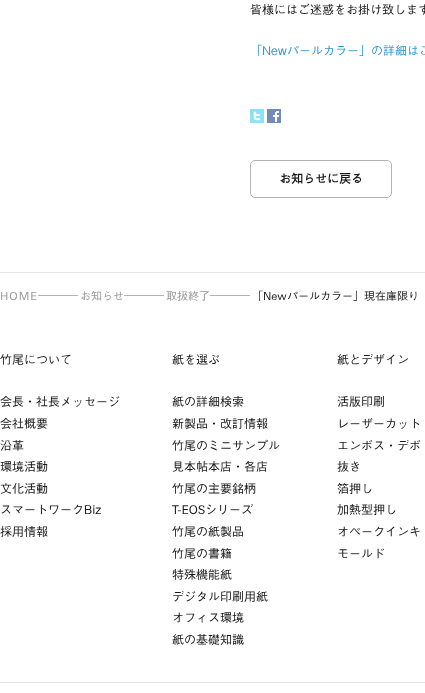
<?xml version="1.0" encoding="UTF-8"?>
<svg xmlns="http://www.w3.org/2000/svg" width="425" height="693">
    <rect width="100%" height="100%" fill="#FFFFFF"/>
    <text x="250" y="14" font-family="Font" font-size="12" fill="#191919">皆様にはご迷惑をお掛け致します</text>
    <text x="250" y="55" font-family="Font" font-size="12" fill="#3399CC">「Newパールカラー」の詳細はこ</text>
    <image x="250" y="109" width="14" height="14" href="img_01.png"/>
    <image x="267" y="109" width="14" height="14" href="img_02.png"/>
    <rect x="250.5" y="160.5" width="141" height="37" rx="4.5" fill="none" stroke="#B3B3B3"/>
    <text x="279" y="183" font-family="Font" font-size="12" font-weight="700" fill="#191919">お知らせに戻る</text>
    <rect x="0" y="272" width="425" height="1" fill="#E6E6E6"/>
    <text x="0" y="300" font-family="'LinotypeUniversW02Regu'" font-size="11" letter-spacing="1" fill="#999999">HOME</text>
    <rect x="38" y="295" width="40" height="1" fill="#B3B3B3"/>
    <text x="80" y="300" font-family="Font" font-size="11" fill="#999999">お知らせ</text>
    <rect x="124" y="295" width="40" height="1" fill="#B3B3B3"/>
    <text x="166" y="300" font-family="Font" font-size="11" fill="#999999">取扱終了</text>
    <rect x="210" y="295" width="40" height="1" fill="#B3B3B3"/>
    <text x="252" y="300" font-family="Font" font-size="11" fill="#191919">「</text>
    <text x="263" y="300" font-family="'LinotypeUniversW02Regu'" font-size="11" fill="#191919">New</text>
    <text x="287" y="300" font-family="Font" font-size="11" fill="#191919">パールカラー」現在庫限り</text>
    <text x="0" y="364" font-family="Font" font-size="12" fill="#191919">竹尾について</text>
    <text font-family="Font" font-size="12" fill="#191919">
        <tspan x="0" y="406">会長・社長メッセージ</tspan>
        <tspan x="0" y="428">会社概要</tspan>
        <tspan x="0" y="450">沿革</tspan>
        <tspan x="0" y="471">環境活動</tspan>
        <tspan x="0" y="493">文化活動</tspan>
        <tspan x="0" y="514">スマートワークBiz</tspan>
        <tspan x="0" y="536">採用情報</tspan>
    </text>
    <text x="172" y="364" font-family="Font" font-size="12" fill="#191919">紙を選ぶ</text>
    <text font-family="Font" font-size="12" fill="#191919">
        <tspan x="172" y="406">紙の詳細検索</tspan>
        <tspan x="172" y="428">新製品・改訂情報</tspan>
        <tspan x="172" y="450">竹尾のミニサンプル</tspan>
        <tspan x="172" y="471">見本帖本店・各店</tspan>
        <tspan x="172" y="493">竹尾の主要銘柄</tspan>
    </text>
    <text x="172" y="514" font-family="'LinotypeUniversW02Regu'" font-size="12" fill="#191919">T-EOS</text>
    <text x="205" y="514" font-family="Font" font-size="12" fill="#191919">シリーズ</text>
    <text font-family="Font" font-size="12" fill="#191919">
        <tspan x="172" y="536">竹尾の紙製品</tspan>
        <tspan x="172" y="558">竹尾の書籍</tspan>
        <tspan x="172" y="579">特殊機能紙</tspan>
        <tspan x="172" y="601">デジタル印刷用紙</tspan>
        <tspan x="172" y="622">オフィス環境</tspan>
        <tspan x="172" y="644">紙の基礎知識</tspan>
    </text>
    <text x="337" y="364" font-family="Font" font-size="12" fill="#191919">紙とデザイン</text>
    <text font-family="Font" font-size="12" fill="#191919">
        <tspan x="337" y="406">活版印刷</tspan>
        <tspan x="337" y="428">レーザーカット</tspan>
        <tspan x="337" y="450">エンボス・デボ</tspan>
        <tspan x="337" y="471">抜き</tspan>
        <tspan x="337" y="493">箔押し</tspan>
        <tspan x="337" y="514">加熱型押し</tspan>
        <tspan x="337" y="536">オペークインキ</tspan>
        <tspan x="337" y="558">モールド</tspan>
    </text>
    <rect x="0" y="682" width="425" height="1" fill="#E6E6E6"/>
</svg>
